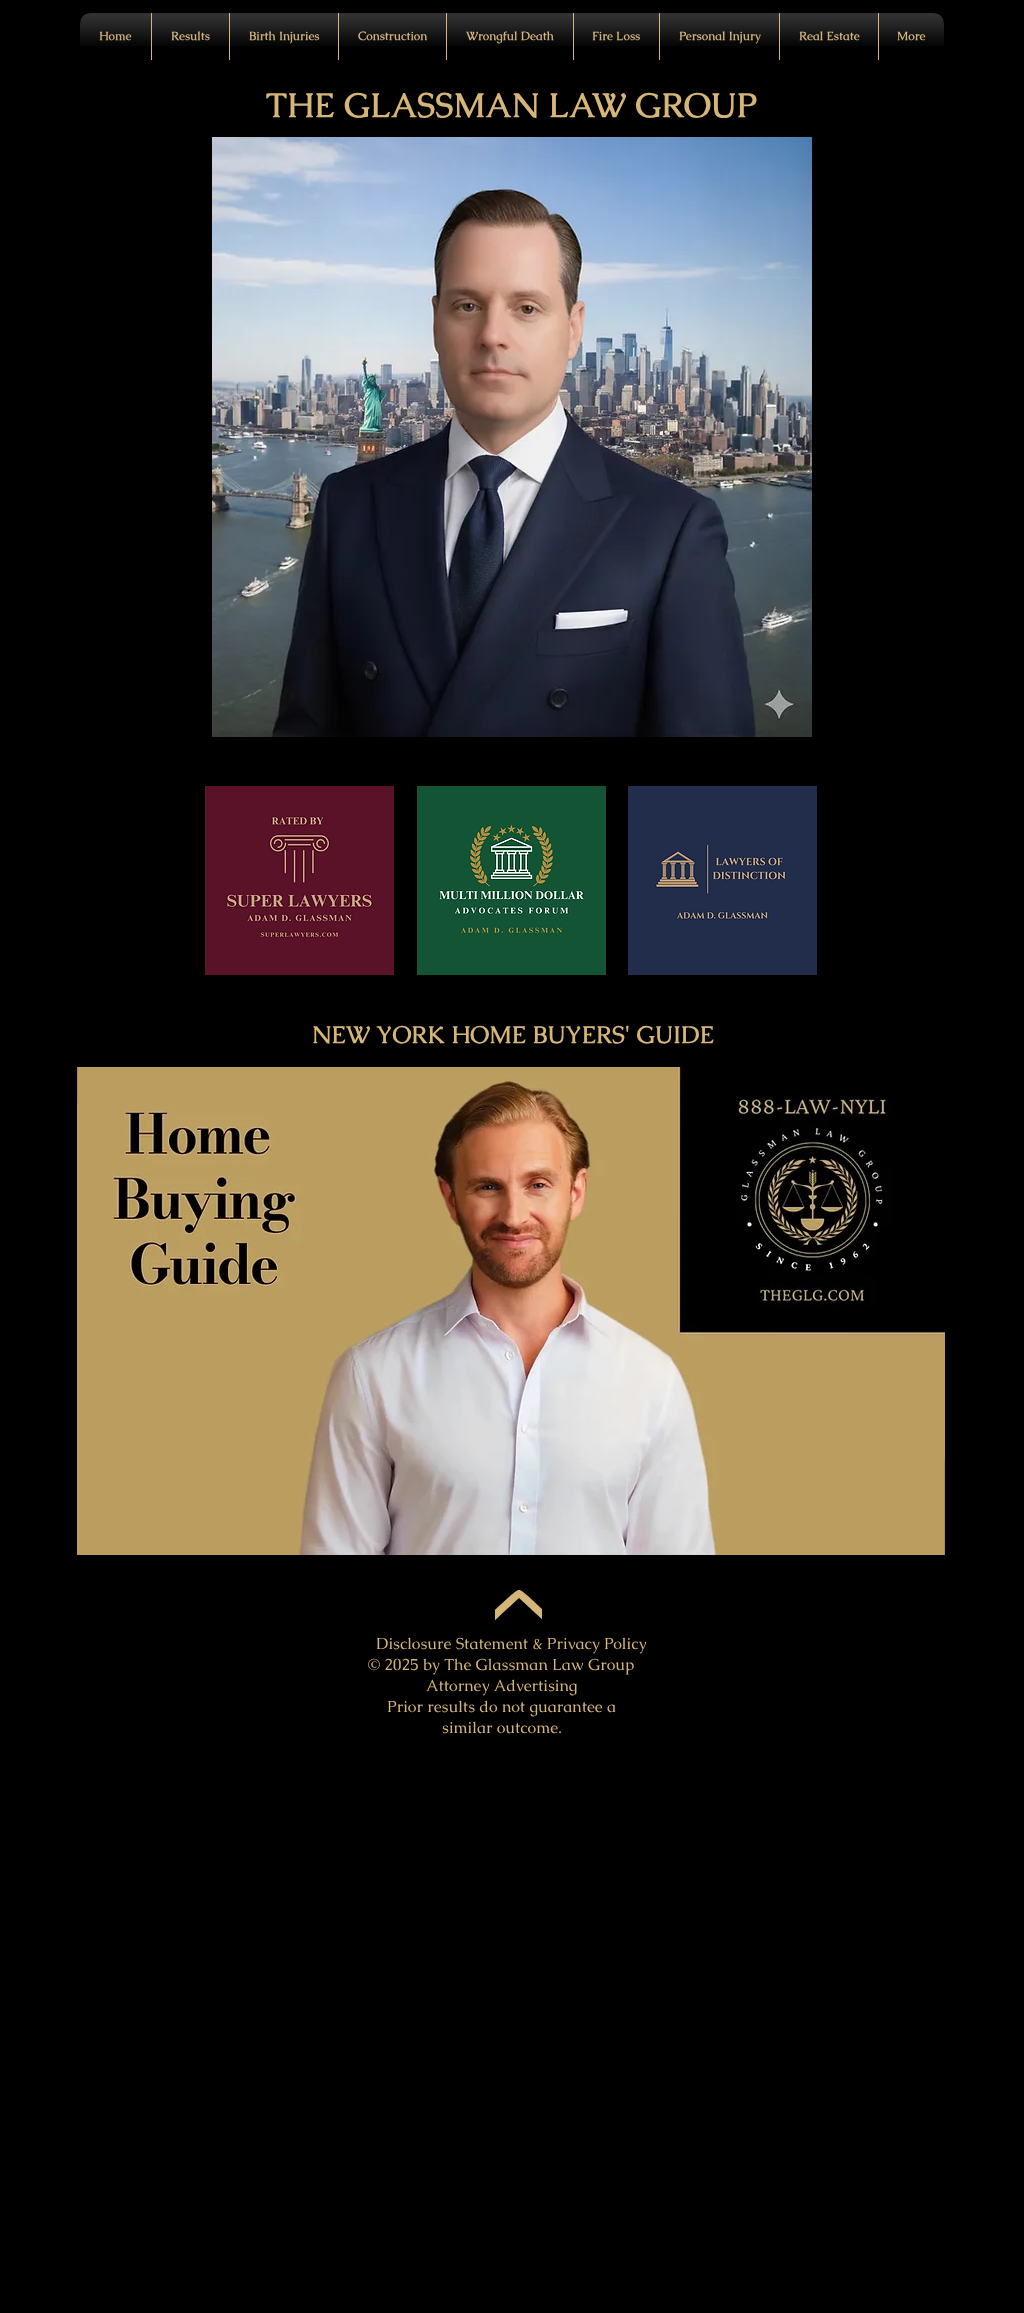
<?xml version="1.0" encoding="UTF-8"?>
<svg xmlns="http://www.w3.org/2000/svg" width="1024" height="2313">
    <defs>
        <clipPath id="clip1"><rect x="495" y="1586" width="47" height="47"/></clipPath>
    </defs>
    <rect width="100%" height="100%" fill="#000000"/>
    <image x="80" y="13" width="864" height="10" href="img_01.png"/>
    <path d="M 90 13 H 151 V 60 H 90 C 84.5 60 80 55.5 80 50 V 23 C 80 17.5 84.5 13 90 13 Z" fill="#000000"/>
    <text x="99" y="40" font-family="Caudex" font-size="12" font-weight="700" fill="#D6B578">Home</text>
    <image x="80" y="13" width="71" height="33" href="img_02.png"/>
    <image x="100" y="34" width="32" height="6" href="img_03.png"/>
    <rect x="152" y="13" width="77" height="10" fill="#000000"/>
    <rect x="151" y="13" width="1" height="47" fill="#D6B578"/>
    <text x="171" y="40" font-family="Caudex" font-size="12" font-weight="700" fill="#D6B578">Results</text>
    <image x="152" y="13" width="77" height="33" href="img_04.png"/>
    <image x="172" y="34" width="38" height="6" href="img_05.png"/>
    <rect x="230" y="13" width="108" height="10" fill="#000000"/>
    <rect x="229" y="13" width="1" height="47" fill="#D6B578"/>
    <text x="249" y="40" font-family="Caudex" font-size="12" font-weight="700" fill="#D6B578">Birth Injuries</text>
    <image x="230" y="13" width="108" height="33" href="img_06.png"/>
    <image x="249" y="34" width="70" height="9" href="img_07.png"/>
    <rect x="339" y="13" width="107" height="10" fill="#000000"/>
    <rect x="338" y="13" width="1" height="47" fill="#D6B578"/>
    <text x="358" y="40" font-family="Caudex" font-size="12" font-weight="700" fill="#D6B578">Construction</text>
    <image x="339" y="13" width="107" height="33" href="img_08.png"/>
    <image x="358" y="34" width="69" height="7" href="img_09.png"/>
    <rect x="447" y="13" width="126" height="10" fill="#000000"/>
    <rect x="446" y="13" width="1" height="47" fill="#D6B578"/>
    <text x="466" y="40" font-family="Caudex" font-size="12" font-weight="700" fill="#D6B578">Wrongful Death</text>
    <image x="447" y="13" width="126" height="33" href="img_10.png"/>
    <image x="468" y="34" width="85" height="10" href="img_11.png"/>
    <rect x="574" y="13" width="85" height="10" fill="#000000"/>
    <rect x="573" y="13" width="1" height="47" fill="#D6B578"/>
    <text x="592" y="40" font-family="Caudex" font-size="12" font-weight="700" fill="#D6B578">Fire Loss</text>
    <image x="574" y="13" width="85" height="33" href="img_12.png"/>
    <image x="593" y="34" width="47" height="6" href="img_13.png"/>
    <rect x="660" y="13" width="119" height="10" fill="#000000"/>
    <rect x="659" y="13" width="1" height="47" fill="#D6B578"/>
    <text x="679" y="40" font-family="Caudex" font-size="12" font-weight="700" fill="#D6B578">Personal Injury</text>
    <image x="660" y="13" width="119" height="33" href="img_14.png"/>
    <image x="679" y="34" width="81" height="10" href="img_15.png"/>
    <rect x="780" y="13" width="98" height="10" fill="#000000"/>
    <rect x="779" y="13" width="1" height="47" fill="#D6B578"/>
    <text x="799" y="40" font-family="Caudex" font-size="12" font-weight="700" fill="#D6B578">Real Estate</text>
    <image x="780" y="13" width="98" height="33" href="img_16.png"/>
    <image x="800" y="34" width="59" height="6" href="img_17.png"/>
    <path d="M 878 13 H 934 C 939.5 13 944 17.5 944 23 V 50 C 944 55.5 939.5 60 934 60 H 878 Z" fill="#000000"/>
    <rect x="878" y="13" width="1" height="47" fill="#D6B578"/>
    <text x="897" y="40" font-family="Caudex" font-size="12" font-weight="700" fill="#D6B578">More</text>
    <image x="879" y="13" width="65" height="33" href="img_18.png"/>
    <image x="898" y="34" width="27" height="6" href="img_19.png"/>
    <text x="266" y="117" font-family="Caudex" font-size="34" font-weight="700" fill="#D6B578">THE GLASSMAN LAW GROUP</text>
    <image x="212" y="137" width="600" height="600" href="img_20.png"/>
    <image x="205" y="786" width="189" height="189" href="img_21.png"/>
    <image x="417" y="786" width="189" height="189" href="img_22.png"/>
    <image x="628" y="786" width="189" height="189" href="img_23.png"/>
    <text x="312" y="1043" font-family="Caudex" font-size="24" font-weight="700" fill="#D6B578">NEW YORK HOME BUYERS' GUIDE</text>
    <image x="77" y="1067" width="868" height="488" href="img_24.png"/>
    <g clip-path="url(#clip1)">
        <path d="M 558 1624 L 528 1596 C 518 1588 520 1588 510 1596 L 486 1618 C 485 1620 476 1625 480 1629 C 484 1633 489 1626 491 1624 L 519 1598 L 547 1624 C 549 1625 556 1634 559 1628 C 559 1627 559 1625 558 1624 Z" fill="#D6B578"/>
    </g>
    <text x="376" y="1649" font-family="Caudex" font-size="16" fill="#D6B578">Disclosure Statement &amp; Privacy Policy</text>
    <text x="368" y="1670" font-family="Caudex" font-size="16" fill="#D6B578">© 2025 by The Glassman Law Group</text>
    <text x="426" y="1691" font-family="Caudex" font-size="16" fill="#D6B578">Attorney Advertising</text>
    <text x="387" y="1712" font-family="Caudex" font-size="16" fill="#D6B578">Prior results do not guarantee a</text>
    <text x="442" y="1733" font-family="Caudex" font-size="16" fill="#D6B578">similar outcome.</text>
</svg>
